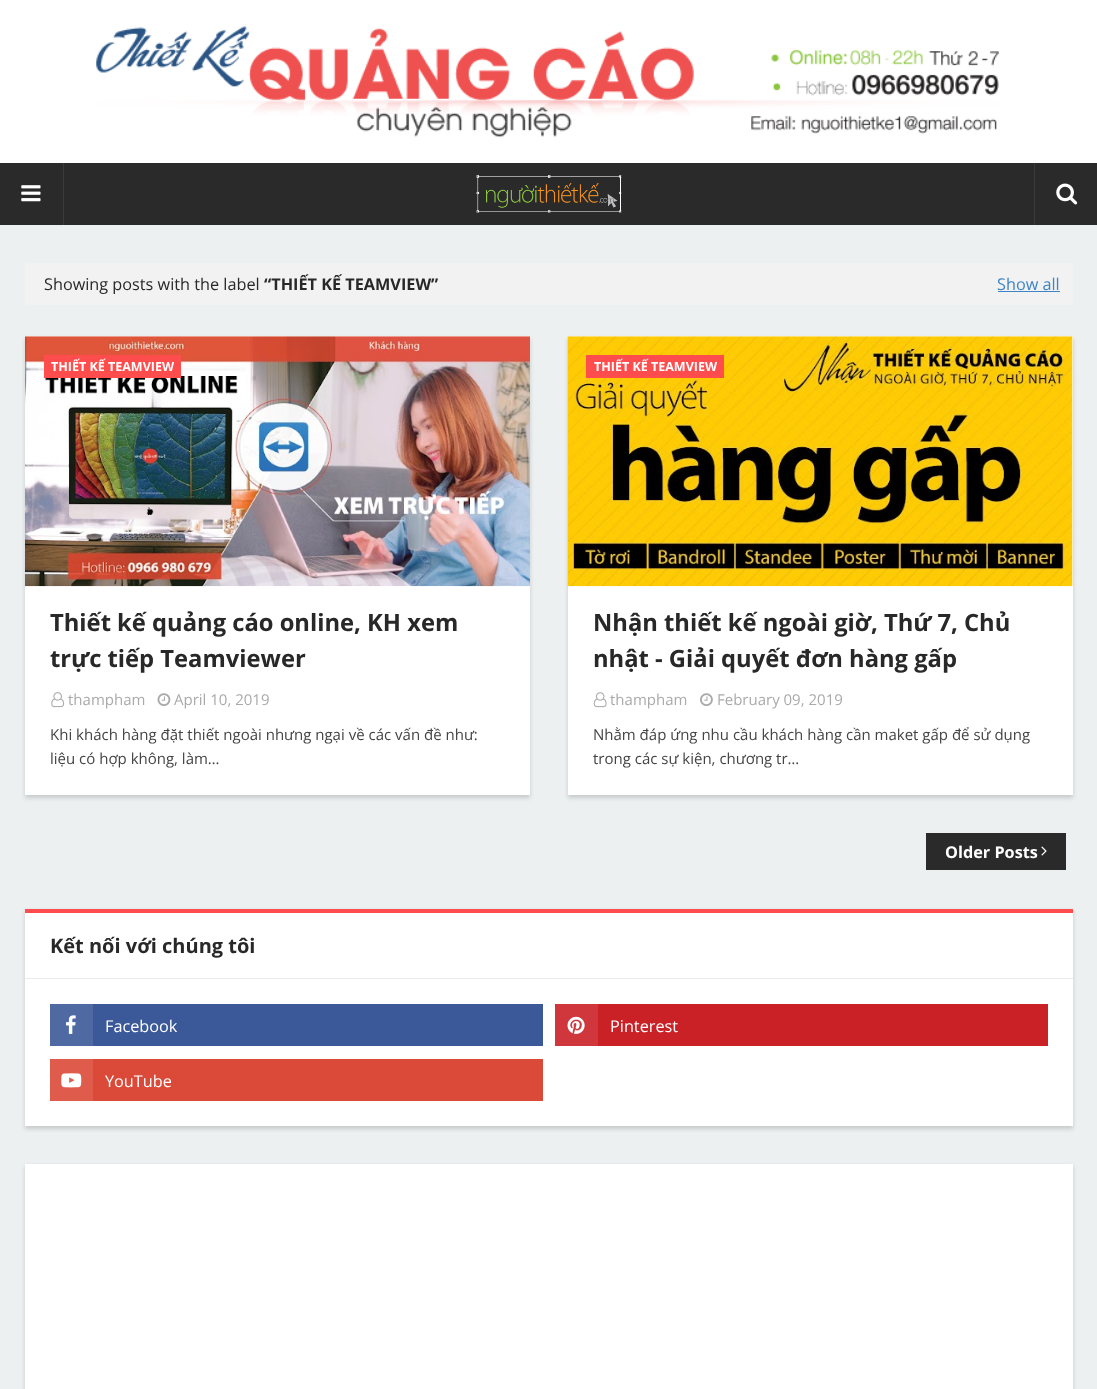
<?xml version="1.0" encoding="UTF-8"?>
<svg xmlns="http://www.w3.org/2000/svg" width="1097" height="1389">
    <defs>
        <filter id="blur1" x="-50%" y="-200%" width="200%" height="500%"><feGaussianBlur stdDeviation="2"/></filter>
    </defs>
    <rect width="100%" height="100%" fill="#ECF0F1"/>
    <rect x="0" y="0" width="1097" height="163" fill="#FFFFFF"/>
    <image x="96" y="26" width="903" height="112" href="img_01.png"/>
    <rect x="0" y="163" width="1097" height="62" fill="#2A2A2A"/>
    <rect x="63" y="163" width="1" height="62" fill="#3B3B3B"/>
    <image x="21" y="185" width="20" height="17" href="img_02.png"/>
    <image x="476" y="175" width="146" height="38" href="img_03.png"/>
    <rect x="1034" y="163" width="1" height="62" fill="#3B3B3B"/>
    <image x="1056" y="183" width="22" height="22" href="img_04.png"/>
    <rect x="25" y="263" width="1048" height="42" fill="#F2F2F2"/>
    <text x="44" y="290" font-family="Open Sans" font-size="16.25" fill="#282828">Showing posts with the label</text>
    <text x="264" y="290" font-family="Open Sans" font-size="16.25" font-weight="700" fill="#282828">“THIẾT KẾ TEAMVIEW”</text>
    <text x="997" y="290" font-family="Open Sans" font-size="16.25" fill="#3D85C6">Show all</text>
    <rect x="998" y="291" width="62" height="1" fill="#3D85C6"/>
    <rect x="25" y="339" width="505" height="459" fill="#000000" fill-opacity="0.1" filter="url(#blur1)"/>
    <rect x="25" y="339" width="505" height="459" fill="#000000" fill-opacity="0.06" filter="url(#blur1)"/>
    <rect x="25" y="336" width="505" height="1" fill="#FAFAFA"/>
    <rect x="25" y="586" width="505" height="209" fill="#FFFFFF"/>
    <image x="25" y="336" width="505" height="251" href="img_05.png"/>
    <rect x="44" y="355" width="137" height="23" fill="#FF4D4D"/>
    <text x="51" y="371" font-family="Open Sans" font-size="12.5" font-weight="700" fill="#FFFFFF">THIẾT KẾ TEAMVIEW</text>
    <text font-family="Open Sans" font-size="23.75" font-weight="700" fill="#282828">
        <tspan x="50" y="631">Thiết kế quảng cáo online, KH xem</tspan>
        <tspan x="50" y="667">trực tiếp Teamviewer</tspan>
    </text>
    <image x="51" y="692" width="14" height="16" href="img_06.png"/>
    <text x="68" y="705" font-family="Open Sans" font-size="15" fill="#AAAAAA">thampham</text>
    <image x="157" y="693" width="14" height="13" href="img_07.png"/>
    <text x="174" y="705" font-family="Open Sans" font-size="15" fill="#AAAAAA">April 10, 2019</text>
    <text font-family="Open Sans" font-size="15" fill="#444444">
        <tspan x="50" y="740">Khi khách hàng đặt thiết ngoài nhưng ngại về các vấn đề như:</tspan>
        <tspan x="50" y="764">liệu có hợp không, làm…</tspan>
    </text>
    <rect x="568" y="339" width="505" height="459" fill="#000000" fill-opacity="0.1" filter="url(#blur1)"/>
    <rect x="568" y="339" width="505" height="459" fill="#000000" fill-opacity="0.06" filter="url(#blur1)"/>
    <rect x="568" y="336" width="505" height="250" fill="#FAFAFA"/>
    <rect x="568" y="586" width="505" height="209" fill="#FFFFFF"/>
    <image x="567" y="336" width="506" height="251" href="img_08.png"/>
    <rect x="586" y="355" width="138" height="23" fill="#FF4D4D"/>
    <text x="594" y="371" font-family="Open Sans" font-size="12.5" font-weight="700" fill="#FFFFFF">THIẾT KẾ TEAMVIEW</text>
    <text font-family="Open Sans" font-size="23.75" font-weight="700" fill="#282828">
        <tspan x="593" y="631">Nhận thiết kế ngoài giờ, Thứ 7, Chủ</tspan>
        <tspan x="593" y="667">nhật - Giải quyết đơn hàng gấp</tspan>
    </text>
    <image x="593" y="692" width="14" height="16" href="img_09.png"/>
    <text x="610" y="705" font-family="Open Sans" font-size="15" fill="#AAAAAA">thampham</text>
    <image x="700" y="693" width="13" height="13" href="img_10.png"/>
    <text x="717" y="705" font-family="Open Sans" font-size="15" fill="#AAAAAA">February 09, 2019</text>
    <text font-family="Open Sans" font-size="15" fill="#444444">
        <tspan x="593" y="740">Nhằm đáp ứng nhu cầu khách hàng cần maket gấp để sử dụng</tspan>
        <tspan x="593" y="764">trong các sự kiện, chương tr…</tspan>
    </text>
    <rect x="926" y="833" width="140" height="37" fill="#2A2A2A"/>
    <text x="945" y="858" font-family="Open Sans" font-size="16.25" font-weight="700" fill="#FFFFFF">Older Posts</text>
    <image x="1041" y="846" width="6" height="10" href="img_11.png"/>
    <rect x="25" y="911" width="1048" height="218" fill="#000000" fill-opacity="0.1" filter="url(#blur1)"/>
    <rect x="25" y="911" width="1048" height="218" fill="#000000" fill-opacity="0.06" filter="url(#blur1)"/>
    <rect x="25" y="913" width="1048" height="213" fill="#FFFFFF"/>
    <rect x="25" y="909" width="1048" height="4" fill="#FF4D4D"/>
    <rect x="25" y="978" width="1048" height="1" fill="#EBEBEB"/>
    <text x="50" y="953" font-family="Open Sans" font-size="20" font-weight="700" fill="#282828">Kết nối với chúng tôi</text>
    <rect x="93" y="1004" width="450" height="42" fill="#3B5999"/>
    <rect x="50" y="1004" width="43" height="42" fill="#4F6AA3"/>
    <image x="66" y="1015" width="10" height="19" href="img_12.png"/>
    <text x="105" y="1032" font-family="Open Sans" font-size="16.25" fill="#FFFFFF">Facebook</text>
    <rect x="598" y="1004" width="450" height="42" fill="#CA2127"/>
    <rect x="555" y="1004" width="43" height="42" fill="#CF373D"/>
    <image x="567" y="1016" width="18" height="18" href="img_13.png"/>
    <text x="610" y="1032" font-family="Open Sans" font-size="16.25" fill="#FFFFFF">Pinterest</text>
    <rect x="93" y="1059" width="450" height="42" fill="#DB4A39"/>
    <rect x="50" y="1059" width="43" height="42" fill="#DF5C4D"/>
    <image x="61" y="1073" width="21" height="15" href="img_14.png"/>
    <text x="105" y="1087" font-family="Open Sans" font-size="16.25" fill="#FFFFFF">YouTube</text>
    <rect x="25" y="1166" width="1048" height="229" fill="#000000" fill-opacity="0.1" filter="url(#blur1)"/>
    <rect x="25" y="1166" width="1048" height="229" fill="#000000" fill-opacity="0.06" filter="url(#blur1)"/>
    <rect x="25" y="1164" width="1048" height="225" fill="#FFFFFF"/>
</svg>
